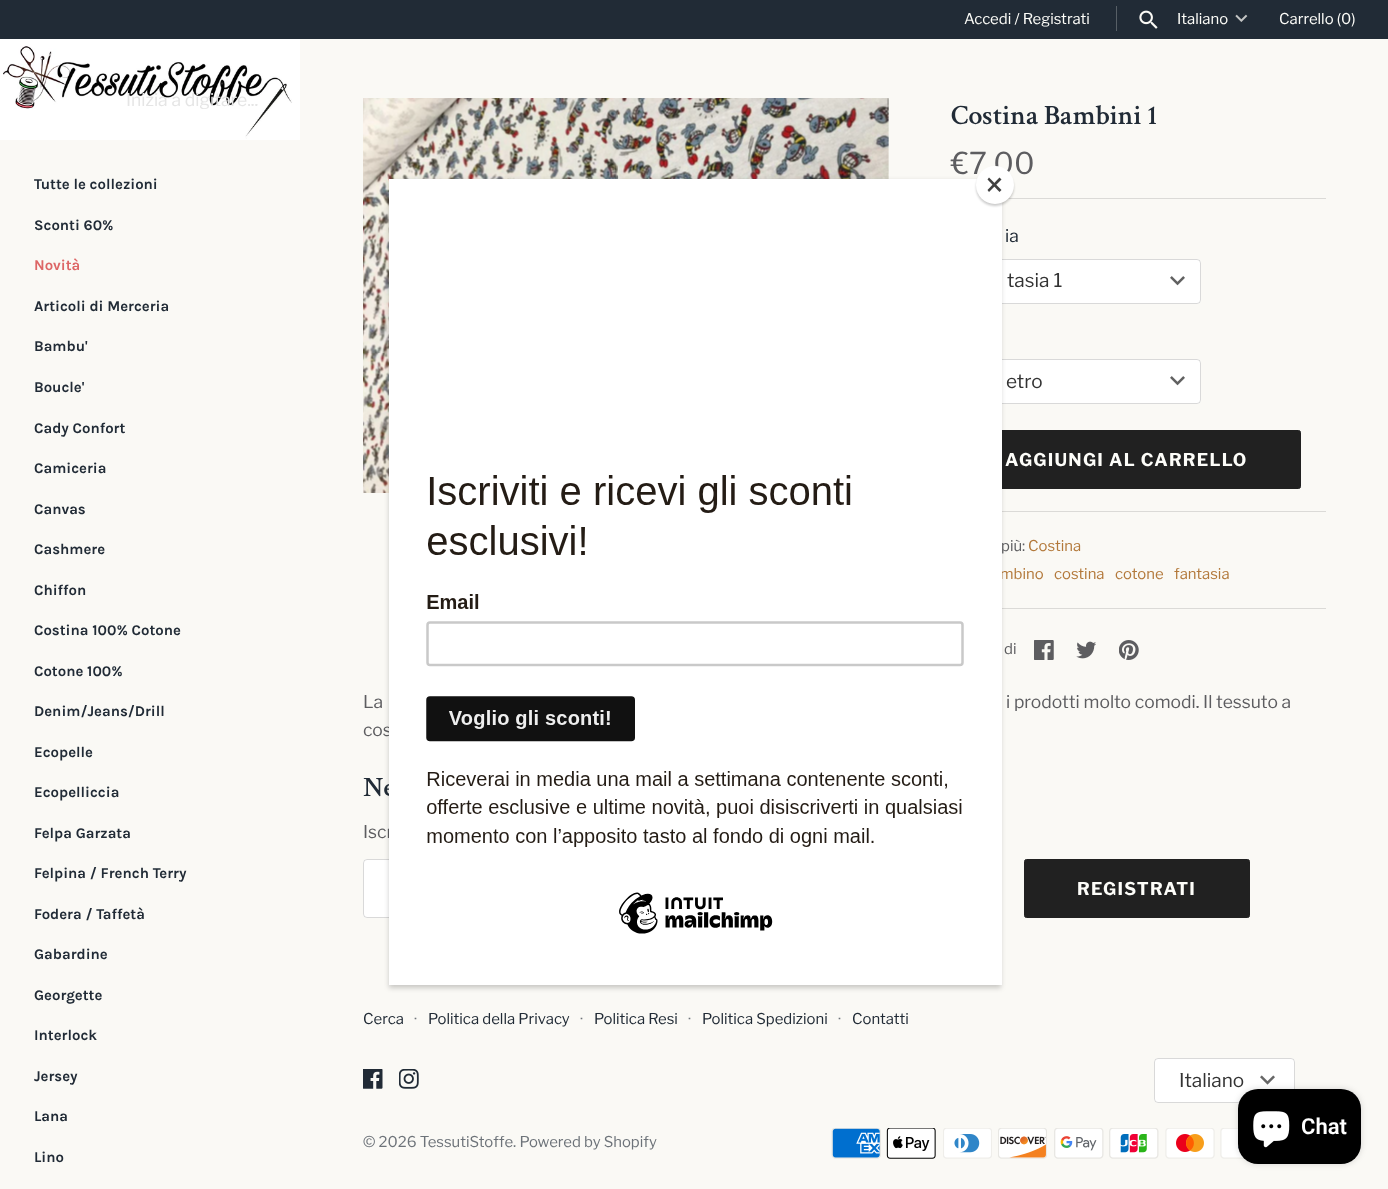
<?xml version="1.0" encoding="UTF-8"?>
<svg xmlns="http://www.w3.org/2000/svg" width="1388" height="1189">
    <defs>
        <filter id="blur1" x="-50%" y="-200%" width="200%" height="500%"><feGaussianBlur stdDeviation="2.5"/></filter>
        <filter id="blur2" x="-50%" y="-200%" width="200%" height="500%"><feGaussianBlur stdDeviation="1"/></filter>
        <filter id="blur3" x="-50%" y="-200%" width="200%" height="500%"><feGaussianBlur stdDeviation="3"/></filter>
    </defs>
    <rect width="100%" height="100%" fill="#FAF9F5"/>
    <rect x="0" y="0" width="1388" height="39" fill="#212B36"/>
    <text x="964" y="24" font-family="Libre Franklin" font-size="14.9" fill="#FDFDF9">Accedi / Registrati</text>
    <rect x="1116" y="6" width="1" height="25" fill="#575F66"/>
    <image x="1139" y="10" width="19" height="19" href="img_01.png"/>
    <text x="1177" y="24" font-family="Libre Franklin" font-size="14.9" fill="#FDFDF9">Italiano</text>
    <image x="1235" y="14" width="13" height="8" href="img_02.png"/>
    <text x="1279" y="24" font-family="Libre Franklin" font-size="14.9" fill="#FDFDF9">Carrello (0)</text>
    <image x="0" y="39" width="300" height="101" href="img_03.png"/>
    <text x="126" y="106" font-family="Libre Franklin" font-size="17.5" fill="#E5E5E5">Inizia a digitare...</text>
    <text x="34" y="189" font-family="Karla" font-size="14.9" font-weight="700" fill="#212B36">Tutte le collezioni</text>
    <text x="34" y="230" font-family="Karla" font-size="14.9" font-weight="700" fill="#212B36">Sconti 60%</text>
    <text x="34" y="270" font-family="Karla" font-size="14.9" font-weight="700" fill="#DD6666">Novità</text>
    <text x="34" y="311" font-family="Karla" font-size="14.9" font-weight="700" fill="#212B36">Articoli di Merceria</text>
    <text x="34" y="351" font-family="Karla" font-size="14.9" font-weight="700" fill="#212B36">Bambu'</text>
    <text x="34" y="392" font-family="Karla" font-size="14.9" font-weight="700" fill="#212B36">Boucle'</text>
    <text x="34" y="433" font-family="Karla" font-size="14.9" font-weight="700" fill="#212B36">Cady Confort</text>
    <text x="34" y="473" font-family="Karla" font-size="14.9" font-weight="700" fill="#212B36">Camiceria</text>
    <text x="34" y="514" font-family="Karla" font-size="14.9" font-weight="700" fill="#212B36">Canvas</text>
    <text x="34" y="554" font-family="Karla" font-size="14.9" font-weight="700" fill="#212B36">Cashmere</text>
    <text x="34" y="595" font-family="Karla" font-size="14.9" font-weight="700" fill="#212B36">Chiffon</text>
    <text x="34" y="635" font-family="Karla" font-size="14.9" font-weight="700" fill="#212B36">Costina 100% Cotone</text>
    <text x="34" y="676" font-family="Karla" font-size="14.9" font-weight="700" fill="#212B36">Cotone 100%</text>
    <text x="34" y="716" font-family="Karla" font-size="14.9" font-weight="700" fill="#212B36">Denim/Jeans/Drill</text>
    <text x="34" y="757" font-family="Karla" font-size="14.9" font-weight="700" fill="#212B36">Ecopelle</text>
    <text x="34" y="797" font-family="Karla" font-size="14.9" font-weight="700" fill="#212B36">Ecopelliccia</text>
    <text x="34" y="838" font-family="Karla" font-size="14.9" font-weight="700" fill="#212B36">Felpa Garzata</text>
    <text x="34" y="878" font-family="Karla" font-size="14.9" font-weight="700" fill="#212B36">Felpina / French Terry</text>
    <text x="34" y="919" font-family="Karla" font-size="14.9" font-weight="700" fill="#212B36">Fodera / Taffetà</text>
    <text x="34" y="959" font-family="Karla" font-size="14.9" font-weight="700" fill="#212B36">Gabardine</text>
    <text x="34" y="1000" font-family="Karla" font-size="14.9" font-weight="700" fill="#212B36">Georgette</text>
    <text x="34" y="1040" font-family="Karla" font-size="14.9" font-weight="700" fill="#212B36">Interlock</text>
    <text x="34" y="1081" font-family="Karla" font-size="14.9" font-weight="700" fill="#212B36">Jersey</text>
    <text x="34" y="1121" font-family="Karla" font-size="14.9" font-weight="700" fill="#212B36">Lana</text>
    <text x="34" y="1162" font-family="Karla" font-size="14.9" font-weight="700" fill="#212B36">Lino</text>
    <image x="363" y="98" width="526" height="395" href="img_04.png"/>
    <text x="951" y="124" font-family="Crimson Text" font-size="28" font-weight="600" fill="#212B36">Costina Bambini 1</text>
    <text x="951" y="174" font-family="Libre Franklin" font-size="30" fill="#5D5D60">€7,00</text>
    <rect x="1007" y="198" width="319" height="1" fill="#DBDAD7"/>
    <text x="1005" y="242" font-family="Libre Franklin" font-size="17.5" fill="#212B36">ia</text>
    <rect x="951" y="259" width="250" height="45" rx="4" fill="#FFFFFF"/>
    <image x="1170" y="276" width="15" height="10" href="img_05.png"/>
    <rect x="951.5" y="259.5" width="249" height="44" rx="3.5" fill="none" stroke="#000000" stroke-opacity="0.15"/>
    <text x="1007" y="287" font-family="Libre Franklin" font-size="19" fill="#333333">tasia 1</text>
    <rect x="951" y="359" width="250" height="45" rx="4" fill="#FFFFFF"/>
    <image x="1170" y="376" width="15" height="10" href="img_05.png"/>
    <rect x="951.5" y="359.5" width="249" height="44" rx="3.5" fill="none" stroke="#000000" stroke-opacity="0.15"/>
    <text x="1006" y="388" font-family="Libre Franklin" font-size="19" fill="#333333">etro</text>
    <rect x="951.5" y="430.5" width="349" height="58" rx="2" fill="#212121" stroke="#212121"/>
    <text x="1005" y="466" font-family="Libre Franklin" font-size="17.5" font-weight="700" letter-spacing="1.25" fill="#FDFDF9">AGGIUNGI AL CARRELLO</text>
    <rect x="1002" y="511" width="324" height="1" fill="#DBDAD7"/>
    <text x="1001" y="551" font-family="Libre Franklin" font-size="14.9" fill="#5D5D60">più:</text>
    <text x="1028" y="551" font-family="Libre Franklin" font-size="14.9" fill="#B3793B">Costina</text>
    <text x="1000" y="579" font-family="Libre Franklin" font-size="14.9" fill="#B3793B">mbino</text>
    <text x="1054" y="579" font-family="Libre Franklin" font-size="14.9" fill="#B3793B">costina</text>
    <text x="1115" y="579" font-family="Libre Franklin" font-size="14.9" fill="#B3793B">cotone</text>
    <text x="1174" y="579" font-family="Libre Franklin" font-size="14.9" fill="#B3793B">fantasia</text>
    <rect x="1002" y="608" width="324" height="1" fill="#DBDAD7"/>
    <text x="1004" y="654" font-family="Libre Franklin" font-size="14.9" fill="#5D5D60">di</text>
    <image x="1034" y="640" width="20" height="20" href="img_06.png"/>
    <image x="1076" y="641" width="20" height="18" href="img_07.png"/>
    <image x="1119" y="640" width="20" height="20" href="img_08.png"/>
    <text x="363" y="708" font-family="Libre Franklin" font-size="17.5" fill="#5D5D60">La</text>
    <text x="1006" y="708" font-family="Libre Franklin" font-size="17.5" fill="#5D5D60">i prodotti molto comodi. Il tessuto a</text>
    <text x="363" y="736" font-family="Libre Franklin" font-size="17.5" fill="#5D5D60">cos</text>
    <text x="363" y="796" font-family="Crimson Text" font-size="28" font-weight="600" fill="#212B36">Ne</text>
    <text x="363" y="838" font-family="Libre Franklin" font-size="17.5" fill="#5D5D60">Iscr</text>
    <rect x="363" y="859" width="636" height="59" rx="4" fill="#FFFFFF"/>
    <rect x="363.5" y="859.5" width="635" height="58" rx="3.5" fill="none" stroke="#000000" stroke-opacity="0.15"/>
    <rect x="1024.5" y="859.5" width="225" height="58" rx="2" fill="#212121" stroke="#212121"/>
    <text x="1077" y="895" font-family="Libre Franklin" font-size="17.5" font-weight="700" letter-spacing="1.25" fill="#FDFDF9">REGISTRATI</text>
    <text x="363" y="1024" font-family="Libre Franklin" font-size="14.9" fill="#212B36">Cerca</text>
    <text x="414" y="1024" font-family="Libre Franklin" font-size="14.9" fill="#6D7379">·</text>
    <text x="428" y="1024" font-family="Libre Franklin" font-size="14.9" fill="#212B36">Politica della Privacy</text>
    <text x="580" y="1024" font-family="Libre Franklin" font-size="14.9" fill="#6D7379">·</text>
    <text x="594" y="1024" font-family="Libre Franklin" font-size="14.9" fill="#212B36">Politica Resi</text>
    <text x="688" y="1024" font-family="Libre Franklin" font-size="14.9" fill="#6D7379">·</text>
    <text x="702" y="1024" font-family="Libre Franklin" font-size="14.9" fill="#212B36">Politica Spedizioni</text>
    <text x="838" y="1024" font-family="Libre Franklin" font-size="14.9" fill="#6D7379">·</text>
    <text x="852" y="1024" font-family="Libre Franklin" font-size="14.9" fill="#212B36">Contatti</text>
    <image x="363" y="1069" width="20" height="20" href="img_09.png"/>
    <image x="399" y="1069" width="20" height="20" href="img_10.png"/>
    <rect x="1154" y="1058" width="141" height="45" rx="4" fill="#FFFFFF"/>
    <rect x="1154.5" y="1058.5" width="140" height="44" rx="3.5" fill="none" stroke="#000000" stroke-opacity="0.15"/>
    <text x="1179" y="1087" font-family="Libre Franklin" font-size="19" fill="#333333">Italiano</text>
    <image x="1260" y="1075" width="15" height="10" href="img_11.png"/>
    <text x="363" y="1147" font-family="Libre Franklin" font-size="14.9" fill="#6D7379">© 2026 TessutiStoffe. Powered by Shopify</text>
    <image x="831" y="1128" width="50" height="31" href="img_12.png"/>
    <image x="886" y="1128" width="50" height="31" href="img_13.png"/>
    <image x="943" y="1128" width="49" height="31" href="img_14.png"/>
    <image x="998" y="1128" width="49" height="31" href="img_15.png"/>
    <image x="1054" y="1128" width="50" height="31" href="img_16.png"/>
    <image x="1109" y="1128" width="50" height="31" href="img_17.png"/>
    <image x="1165" y="1128" width="50" height="31" href="img_18.png"/>
    <image x="1220" y="1128" width="25" height="31" href="img_19.png"/>
    <rect x="389" y="181" width="612" height="807" fill="#000000" fill-opacity="0.2" filter="url(#blur1)"/>
    <image x="389" y="179" width="613" height="806" href="img_20.png"/>
    <rect x="976" y="169" width="38" height="37" rx="18.5" fill="#000000" fill-opacity="0.2" filter="url(#blur2)"/>
    <circle cx="995" cy="185" r="19" fill="#FFFFFF"/>
    <path d="M 999.5 177.5 L 1001.5 179.5 L 989 192 L 987.5 190 Z" fill="#414141"/>
    <path d="M 987.5 179.5 L 989 177.5 L 1001.5 190 L 999.5 192 Z" fill="#414141"/>
    <rect x="1238" y="1089" width="123" height="75" rx="20" fill="#000000" fill-opacity="0.15" filter="url(#blur3)"/>
    <rect x="1238" y="1089" width="123" height="75" rx="20" fill="#000000"/>
    <image x="1253" y="1111" width="37" height="37" href="img_21.png"/>
    <text x="1301" y="1134" font-family="Roboto" font-size="22" font-weight="600" fill="#FFFFFF">Chat</text>
</svg>
